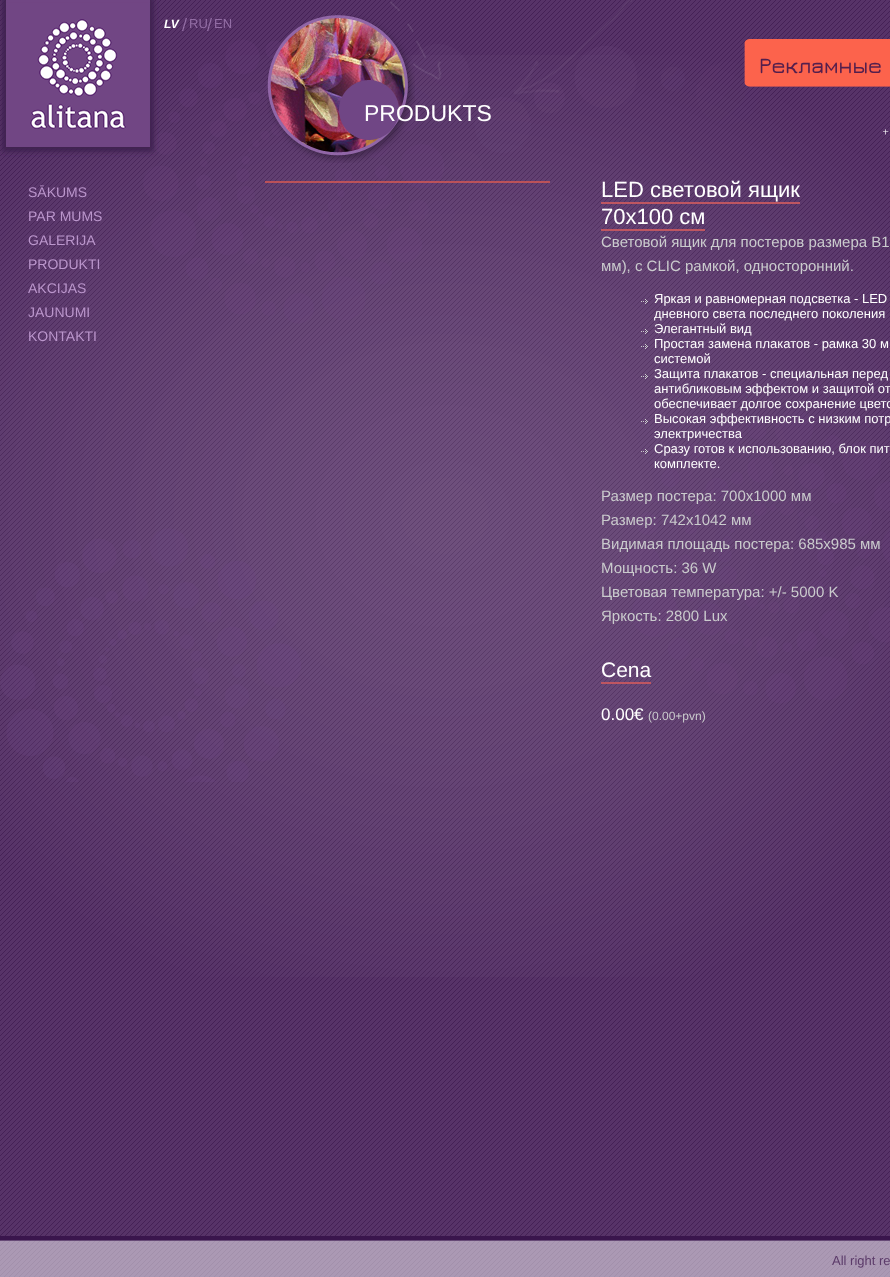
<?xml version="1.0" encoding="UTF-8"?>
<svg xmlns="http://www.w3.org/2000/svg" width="890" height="1277">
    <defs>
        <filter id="blur1" x="-50%" y="-200%" width="200%" height="500%"><feGaussianBlur stdDeviation="2.5"/></filter>
    </defs>
    <rect width="100%" height="100%" fill="#FFFFFF"/>
    <image x="0" y="0" width="890" height="1277" href="img_01.png"/>
    <image x="0" y="55" width="890" height="922" href="img_02.png"/>
    <image x="0" y="0" width="890" height="782" href="img_03.png"/>
    <rect x="2" y="-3" width="152" height="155" fill="#402351" filter="url(#blur1)"/>
    <image x="6" y="0" width="144" height="147" href="img_04.png"/>
    <image x="182" y="18" width="5" height="13" href="img_05.png"/>
    <text x="164" y="28" font-family="Liberation Sans" font-size="12" font-weight="700" font-style="italic" fill="#FFFFFF">LV</text>
    <image x="207" y="18" width="5" height="13" href="img_05.png"/>
    <text x="189" y="28" font-family="Liberation Sans" font-size="13" fill="#936EA5">RU</text>
    <text x="214" y="28" font-family="Liberation Sans" font-size="13" fill="#936EA5">EN</text>
    <image x="267" y="15" width="148" height="148" href="img_06.png"/>
    <image x="339" y="80" width="60" height="60" href="img_07.png"/>
    <text x="364" y="121" font-family="Liberation Sans" font-size="23" fill="#FFFFFF">PRODUKTS</text>
    <image x="744" y="39" width="146" height="48" href="img_08.png"/>
    <text x="759" y="73" font-family="Jura" font-size="22" font-weight="600" fill="#541F4D">Рекламные</text>
    <text x="882" y="136" font-family="Jura" font-size="13" fill="#FFFFFF">+</text>
    <text font-family="Liberation Sans" font-size="14" fill="#BB96CC">
        <tspan x="28" y="197">SĀKUMS</tspan>
        <tspan x="28" y="221">PAR MUMS</tspan>
        <tspan x="28" y="245">GALERIJA</tspan>
        <tspan x="28" y="269">PRODUKTI</tspan>
        <tspan x="28" y="293">AKCIJAS</tspan>
        <tspan x="28" y="317">JAUNUMI</tspan>
        <tspan x="28" y="341">KONTAKTI</tspan>
    </text>
    <rect x="265" y="181" width="285" height="2" fill="#ED5E4E" fill-opacity="0.65"/>
    <text x="601" y="197" font-family="Liberation Sans" font-size="22" fill="#FFFFFF">LED световой ящик</text>
    <rect x="601" y="202" width="199" height="2" fill="#BE5661"/>
    <text x="601" y="224" font-family="Liberation Sans" font-size="22" fill="#FFFFFF">70x100 см</text>
    <rect x="601" y="229" width="104" height="2" fill="#BE5661"/>
    <text font-family="Liberation Sans" font-size="15" fill="#CACBCD">
        <tspan x="601" y="247">Световой ящик для постеров размера B1</tspan>
        <tspan x="601" y="271">мм), с CLIC рамкой, односторонний.</tspan>
    </text>
    <image x="641" y="299" width="7" height="5" href="img_09.png"/>
    <text font-family="Liberation Sans" font-size="13" fill="#FFFFFF">
        <tspan x="654" y="303">Яркая и равномерная подсветка - LED</tspan>
        <tspan x="654" y="318">дневного света последнего поколения</tspan>
    </text>
    <image x="641" y="329" width="7" height="5" href="img_10.png"/>
    <text x="654" y="333" font-family="Liberation Sans" font-size="13" fill="#FFFFFF">Элегантный вид</text>
    <image x="641" y="344" width="7" height="5" href="img_11.png"/>
    <text font-family="Liberation Sans" font-size="13" fill="#FFFFFF">
        <tspan x="654" y="348">Простая замена плакатов - рамка 30 м</tspan>
        <tspan x="654" y="363">системой</tspan>
    </text>
    <image x="641" y="374" width="7" height="5" href="img_12.png"/>
    <text font-family="Liberation Sans" font-size="13" fill="#FFFFFF">
        <tspan x="654" y="378">Защита плакатов - специальная перед</tspan>
        <tspan x="654" y="393">антибликовым эффектом и защитой от</tspan>
        <tspan x="654" y="408">обеспечивает долгое сохранение цвето</tspan>
    </text>
    <image x="641" y="419" width="7" height="5" href="img_13.png"/>
    <text font-family="Liberation Sans" font-size="13" fill="#FFFFFF">
        <tspan x="654" y="423">Высокая эффективность с низким потр</tspan>
        <tspan x="654" y="438">электричества</tspan>
    </text>
    <image x="641" y="449" width="7" height="5" href="img_14.png"/>
    <text font-family="Liberation Sans" font-size="13" fill="#FFFFFF">
        <tspan x="654" y="453">Сразу готов к использованию, блок пит</tspan>
        <tspan x="654" y="468">комплекте.</tspan>
    </text>
    <text font-family="Liberation Sans" font-size="15" fill="#CACBCD">
        <tspan x="601" y="501">Размер постера: 700x1000 мм</tspan>
        <tspan x="601" y="525">Размер: 742x1042 мм</tspan>
        <tspan x="601" y="549">Видимая площадь постера: 685x985 мм</tspan>
        <tspan x="601" y="573">Мощность: 36 W</tspan>
        <tspan x="601" y="597">Цветовая температура: +/- 5000 K</tspan>
        <tspan x="601" y="621">Яркость: 2800 Lux</tspan>
    </text>
    <rect x="601" y="682" width="50" height="2" fill="#BE5661"/>
    <text x="601" y="677" font-family="Liberation Sans" font-size="21" fill="#FFFFFF">Cena</text>
    <text x="601" y="720" font-family="Liberation Sans" font-size="17" fill="#FFFFFF">0.00€</text>
    <text x="648" y="720" font-family="Liberation Sans" font-size="12" fill="#CACBCD">(0.00+pvn)</text>
    <image x="0" y="1236" width="890" height="41" href="img_15.png"/>
    <text x="832" y="1265" font-family="Liberation Sans" font-size="13" fill="#5C3B6A">All right re</text>
</svg>
